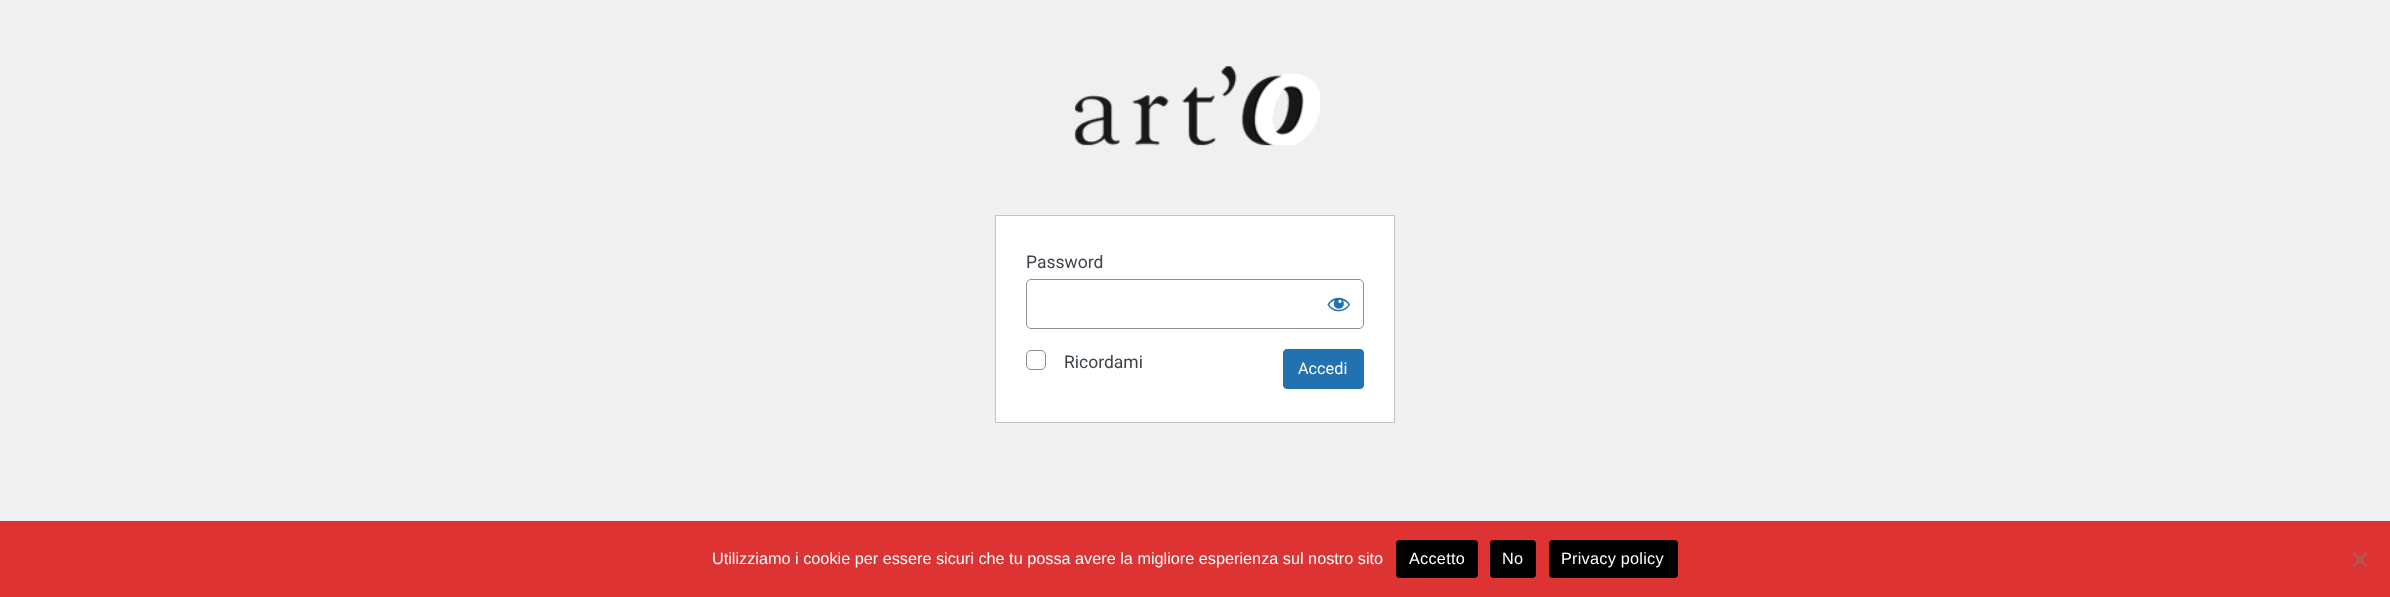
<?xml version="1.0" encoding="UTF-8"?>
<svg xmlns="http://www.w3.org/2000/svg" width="2390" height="597">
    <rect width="100%" height="100%" fill="#F0F0F1"/>
    <image x="1074" y="66" width="246" height="80" href="img_01.png"/>
    <rect x="995.5" y="215.5" width="399" height="207" fill="#FFFFFF" stroke="#C3C4C7"/>
    <text x="1026" y="268" font-family="Roboto" font-size="17.5" fill="#3C434A">Password</text>
    <rect x="1026.5" y="279.5" width="337" height="49" rx="4.5" fill="none" stroke="#8C8F94"/>
    <image x="1327" y="297" width="24" height="15" href="img_02.png"/>
    <rect x="1026.5" y="350.5" width="19" height="19" rx="4.5" fill="none" stroke="#8C8F94"/>
    <text x="1064" y="368" font-family="Roboto" font-size="17.5" fill="#3C434A">Ricordami</text>
    <rect x="1283.5" y="349.5" width="80" height="39" rx="3.5" fill="#2271B1" stroke="#2271B1"/>
    <text x="1298" y="374" font-family="Roboto" font-size="16.25" fill="#FFFFFF">Accedi</text>
    <rect x="0" y="521" width="2390" height="76" fill="#DD3333"/>
    <text x="712" y="564" font-family="Liberation Sans" font-size="16.25" fill="#FFFFFF">Utilizziamo i cookie per essere sicuri che tu possa avere la migliore esperienza sul nostro sito</text>
    <rect x="1396" y="540" width="82" height="38" rx="4" fill="#000000"/>
    <text x="1409" y="564" font-family="Liberation Sans" font-size="16.25" letter-spacing="0.25" fill="#FFFFFF">Accetto</text>
    <rect x="1490" y="540" width="46" height="38" rx="4" fill="#000000"/>
    <text x="1502" y="564" font-family="Liberation Sans" font-size="16.25" letter-spacing="0.25" fill="#FFFFFF">No</text>
    <rect x="1549" y="540" width="129" height="38" rx="4" fill="#000000"/>
    <text x="1561" y="564" font-family="Liberation Sans" font-size="16.25" letter-spacing="0.25" fill="#FFFFFF">Privacy policy</text>
    <path d="M 2365.5 552 L 2367.5 554 L 2354.5 567 L 2352.5 565.5 Z" fill="#AF5A5A"/>
    <path d="M 2352.5 554 L 2354.5 552 L 2367.5 565.5 L 2365.5 567 Z" fill="#AF5A5A"/>
</svg>
